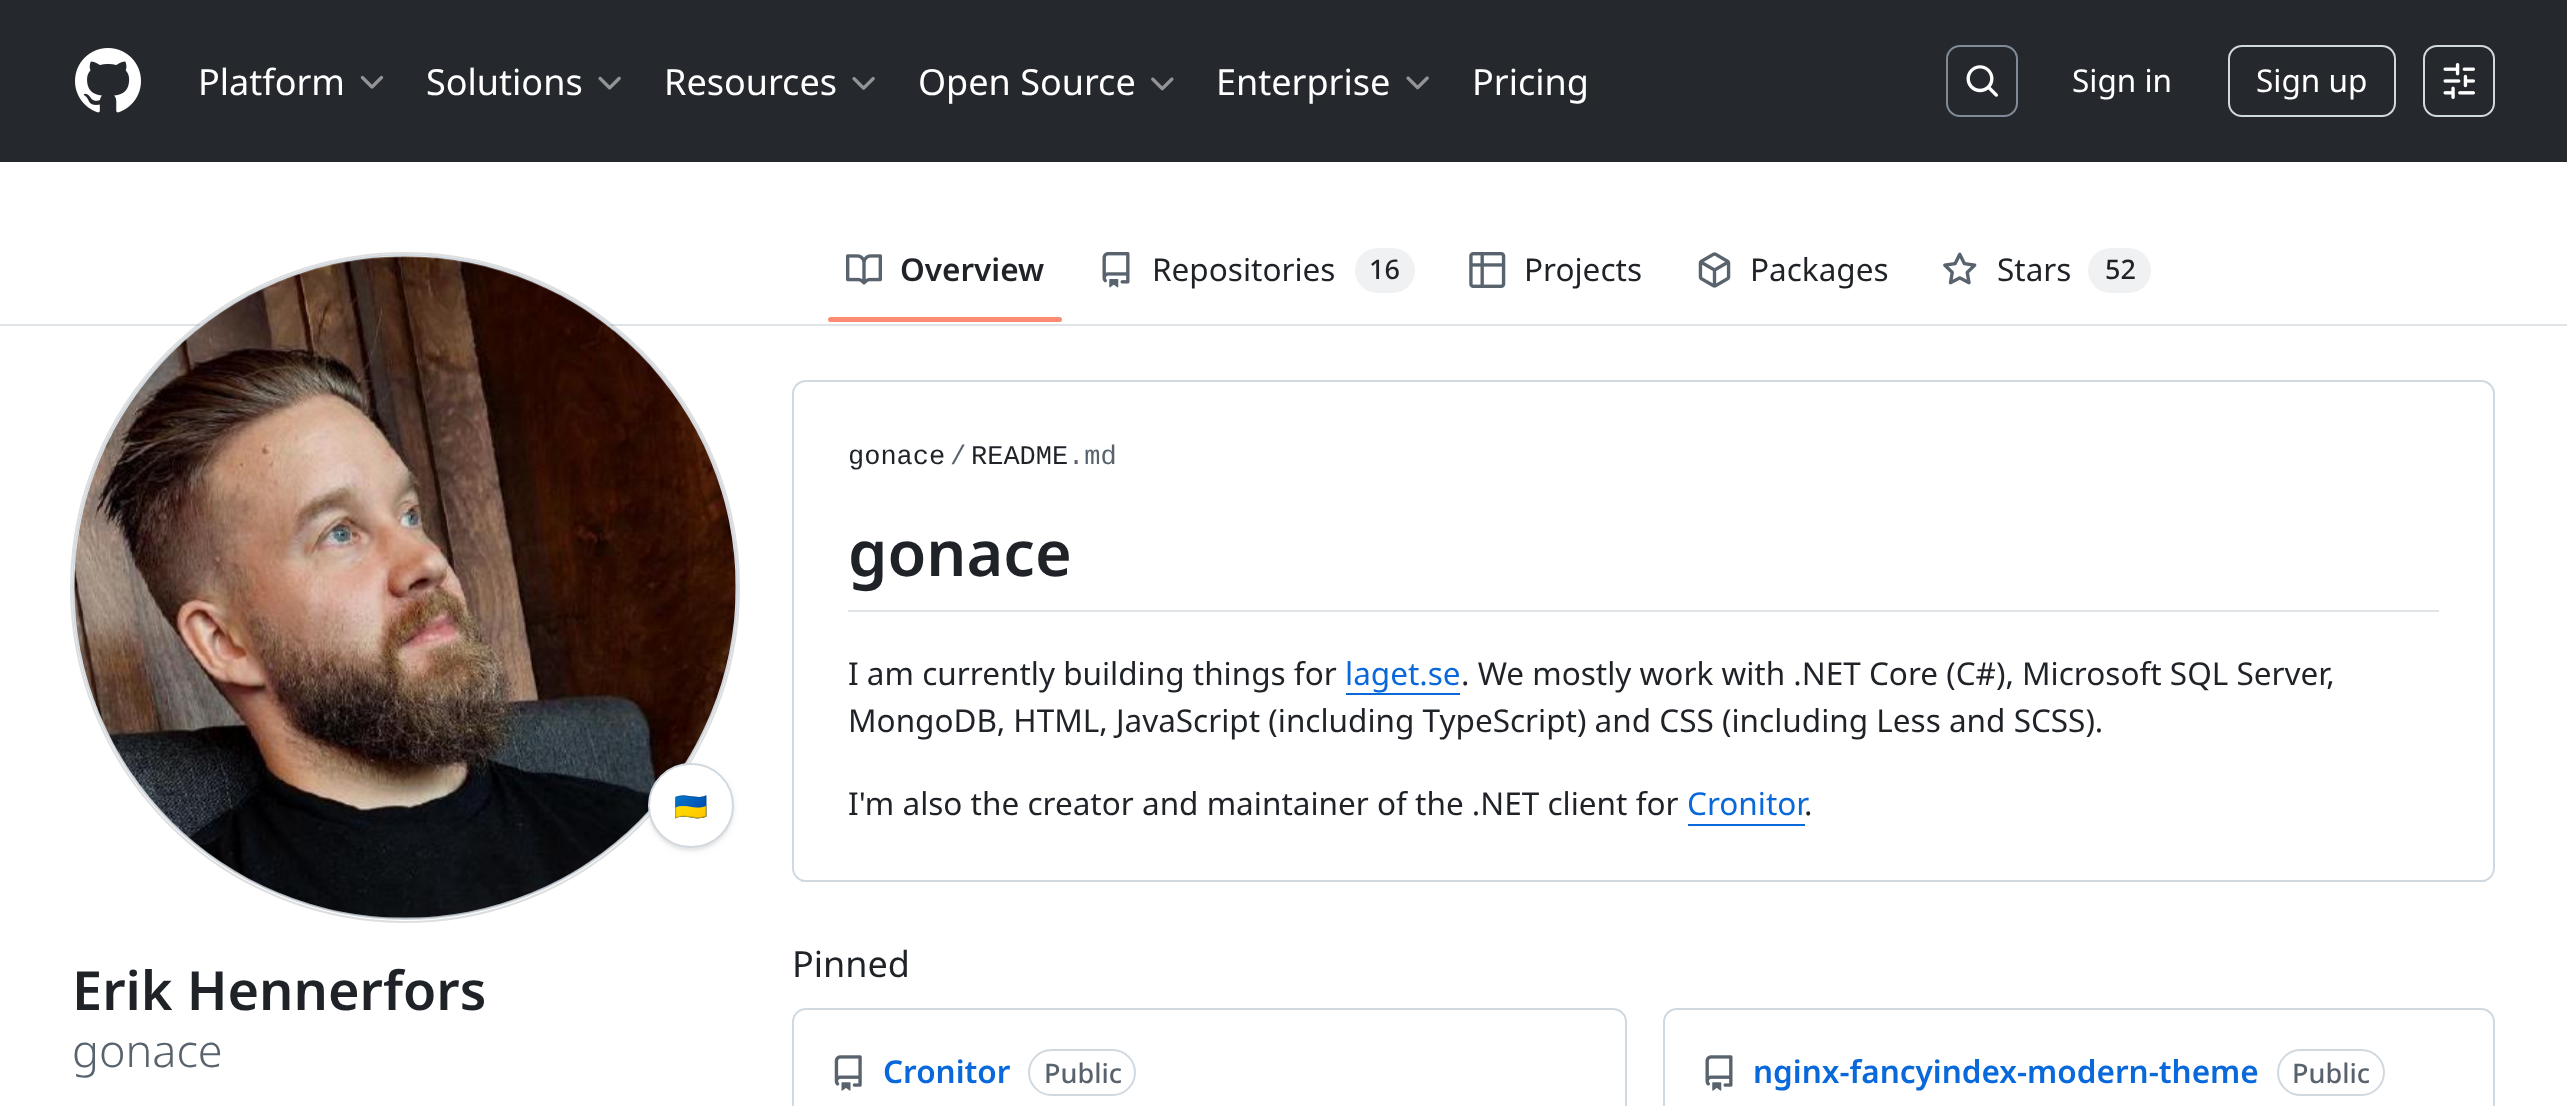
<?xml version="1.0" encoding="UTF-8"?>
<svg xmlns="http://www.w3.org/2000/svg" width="2567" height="1106">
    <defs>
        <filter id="blur1" x="-50%" y="-200%" width="200%" height="500%"><feGaussianBlur stdDeviation="3.5"/></filter>
        <filter id="blur2" x="-50%" y="-200%" width="200%" height="500%"><feGaussianBlur stdDeviation="1"/></filter>
    </defs>
    <rect width="100%" height="100%" fill="#FFFFFF"/>
    <rect x="0" y="0" width="2567" height="162" fill="#25292E"/>
    <image x="75" y="48" width="66" height="65" href="img_01.png"/>
    <text x="198" y="95" font-family="Noto Sans" font-size="36" fill="#FFFFFF">Platform</text>
    <image x="360" y="75" width="24" height="14" href="img_02.png"/>
    <text x="426" y="95" font-family="Noto Sans" font-size="36" fill="#FFFFFF">Solutions</text>
    <image x="598" y="76" width="23" height="14" href="img_03.png"/>
    <text x="664" y="95" font-family="Noto Sans" font-size="36" fill="#FFFFFF">Resources</text>
    <image x="852" y="77" width="23" height="13" href="img_04.png"/>
    <text x="918" y="95" font-family="Noto Sans" font-size="36" fill="#FFFFFF">Open Source</text>
    <image x="1151" y="77" width="23" height="14" href="img_05.png"/>
    <text x="1216" y="95" font-family="Noto Sans" font-size="36" fill="#FFFFFF">Enterprise</text>
    <image x="1406" y="76" width="23" height="14" href="img_06.png"/>
    <text x="1472" y="95" font-family="Noto Sans" font-size="36" fill="#FFFFFF">Pricing</text>
    <rect x="1947" y="46" width="70" height="70" rx="13" fill="none" stroke="#818B98" stroke-width="2"/>
    <image x="1966" y="65" width="32" height="32" href="img_07.png"/>
    <text x="2072" y="92" font-family="Noto Sans" font-size="31.5" fill="#FFFFFF">Sign in</text>
    <rect x="2229" y="46" width="166" height="70" rx="13" fill="none" stroke="#D1D9E0" stroke-width="2"/>
    <text x="2256" y="92" font-family="Noto Sans" font-size="31.5" fill="#FFFFFF">Sign up</text>
    <rect x="2424" y="46" width="70" height="70" rx="13" fill="none" stroke="#D1D9E0" stroke-width="2"/>
    <image x="2443" y="63" width="32" height="36" href="img_08.png"/>
    <rect x="0" y="324" width="2567" height="2" fill="#DFE4E9"/>
    <image x="846" y="254" width="36" height="31" href="img_09.png"/>
    <text x="900" y="281" font-family="Noto Sans" font-size="31.5" font-weight="600" fill="#1F2328">Overview</text>
    <rect x="828" y="317" width="234" height="5" rx="2.5" fill="#FD8C73"/>
    <image x="1102" y="252" width="28" height="36" href="img_10.png"/>
    <text x="1152" y="281" font-family="Noto Sans" font-size="31.5" fill="#1F2328">Repositories</text>
    <rect x="1355" y="248" width="60" height="45" rx="22.5" fill="#F0F1F3"/>
    <text x="1369" y="279" font-family="Noto Sans" font-size="27" font-weight="500" fill="#1F2328">16</text>
    <image x="1469" y="252" width="37" height="36" href="img_11.png"/>
    <text x="1524" y="281" font-family="Noto Sans" font-size="31.5" fill="#1F2328">Projects</text>
    <image x="1698" y="252" width="33" height="36" href="img_12.png"/>
    <text x="1750" y="281" font-family="Noto Sans" font-size="31.5" fill="#1F2328">Packages</text>
    <image x="1943" y="252" width="34" height="33" href="img_13.png"/>
    <text x="1997" y="281" font-family="Noto Sans" font-size="31.5" fill="#1F2328">Stars</text>
    <rect x="2088" y="248" width="63" height="45" rx="22.5" fill="#F0F1F3"/>
    <text x="2105" y="279" font-family="Noto Sans" font-size="27" font-weight="500" fill="#1F2328">52</text>
    <rect x="71" y="253" width="668" height="669" rx="334" fill="none" stroke="#1F2328" stroke-opacity="0.15" stroke-width="2"/>
    <circle cx="405" cy="587" r="332" fill="#FFFFFF" stroke="#D1D9E0" stroke-width="2"/>
    <image x="74" y="256" width="662" height="663" href="img_14.png"/>
    <rect x="648" y="765" width="86" height="86" rx="43" fill="#1F2328" fill-opacity="0.06" filter="url(#blur1)"/>
    <rect x="648" y="765" width="86" height="86" rx="43" fill="#1F2328" fill-opacity="0.06" filter="url(#blur2)"/>
    <rect x="649" y="764" width="84" height="83" rx="41.5" fill="#FFFFFF" stroke="#D1D9E0" stroke-width="2"/>
    <text x="674" y="816" font-family="Noto Color Emoji" font-size="27" fill="#1F2328">🇺🇦</text>
    <text x="72" y="1010" font-family="Noto Sans" font-size="54" font-weight="600" fill="#1F2328">Erik Hennerfors</text>
    <text x="72" y="1067" font-family="Noto Sans" font-size="45" font-weight="300" fill="#59636E">gonace</text>
    <rect x="793" y="381" width="1701" height="500" rx="13" fill="none" stroke="#D1D9E0" stroke-width="2"/>
    <rect x="801" y="881" width="1685" height="1" fill="#D1D9E0"/>
    <text x="848" y="464" font-family="Liberation Mono" font-size="27" fill="#1F2328">gonace</text>
    <text x="950" y="464" font-family="Liberation Mono" font-size="27" fill="#59636E">/</text>
    <text x="971" y="464" font-family="Liberation Mono" font-size="27" fill="#1F2328">README</text>
    <text x="1068" y="464" font-family="Liberation Mono" font-size="27" fill="#59636E">.md</text>
    <rect x="848" y="610" width="1591" height="2" fill="#DFE4E9"/>
    <text x="848" y="576" font-family="Noto Sans" font-size="63" font-weight="600" fill="#1F2328">gonace</text>
    <text x="848" y="685" font-family="Noto Sans" font-size="31.5" fill="#1F2328">I am currently building things for</text>
    <text x="1345" y="685" font-family="Noto Sans" font-size="31.5" fill="#0969DA">laget.se</text>
    <rect x="1346" y="693" width="114" height="2" fill="#0969DA"/>
    <text x="1461" y="685" font-family="Noto Sans" font-size="31.5" fill="#1F2328">. We mostly work with .NET Core (C#), Microsoft SQL Server,</text>
    <text x="848" y="732" font-family="Noto Sans" font-size="31.5" fill="#1F2328">MongoDB, HTML, JavaScript (including TypeScript) and CSS (including Less and SCSS).</text>
    <text x="848" y="815" font-family="Noto Sans" font-size="31.5" fill="#1F2328">I'm also the creator and maintainer of the .NET client for</text>
    <text x="1687" y="815" font-family="Noto Sans" font-size="31.5" fill="#0969DA">Cronitor</text>
    <rect x="1688" y="824" width="117" height="2" fill="#0969DA"/>
    <text x="1804" y="815" font-family="Noto Sans" font-size="31.5" fill="#1F2328">.</text>
    <text x="792" y="977" font-family="Noto Sans" font-size="36" fill="#1F2328">Pinned</text>
    <rect x="793" y="1009" width="833" height="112" rx="13" fill="none" stroke="#D1D9E0" stroke-width="2"/>
    <image x="834" y="1055" width="28" height="36" href="img_15.png"/>
    <text x="883" y="1083" font-family="Noto Sans" font-size="31.5" font-weight="600" fill="#0969DA">Cronitor</text>
    <rect x="1029" y="1050" width="106" height="45" rx="22.5" fill="none" stroke="#D1D9E0" stroke-width="2"/>
    <text x="1044" y="1083" font-family="Noto Sans" font-size="27" font-weight="500" fill="#59636E">Public</text>
    <rect x="1664" y="1009" width="830" height="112" rx="13" fill="none" stroke="#D1D9E0" stroke-width="2"/>
    <image x="1705" y="1055" width="28" height="36" href="img_16.png"/>
    <text x="1753" y="1083" font-family="Noto Sans" font-size="31.5" font-weight="600" fill="#0969DA">nginx-fancyindex-modern-theme</text>
    <rect x="2278" y="1050" width="106" height="45" rx="22.5" fill="none" stroke="#D1D9E0" stroke-width="2"/>
    <text x="2292" y="1083" font-family="Noto Sans" font-size="27" font-weight="500" fill="#59636E">Public</text>
</svg>
